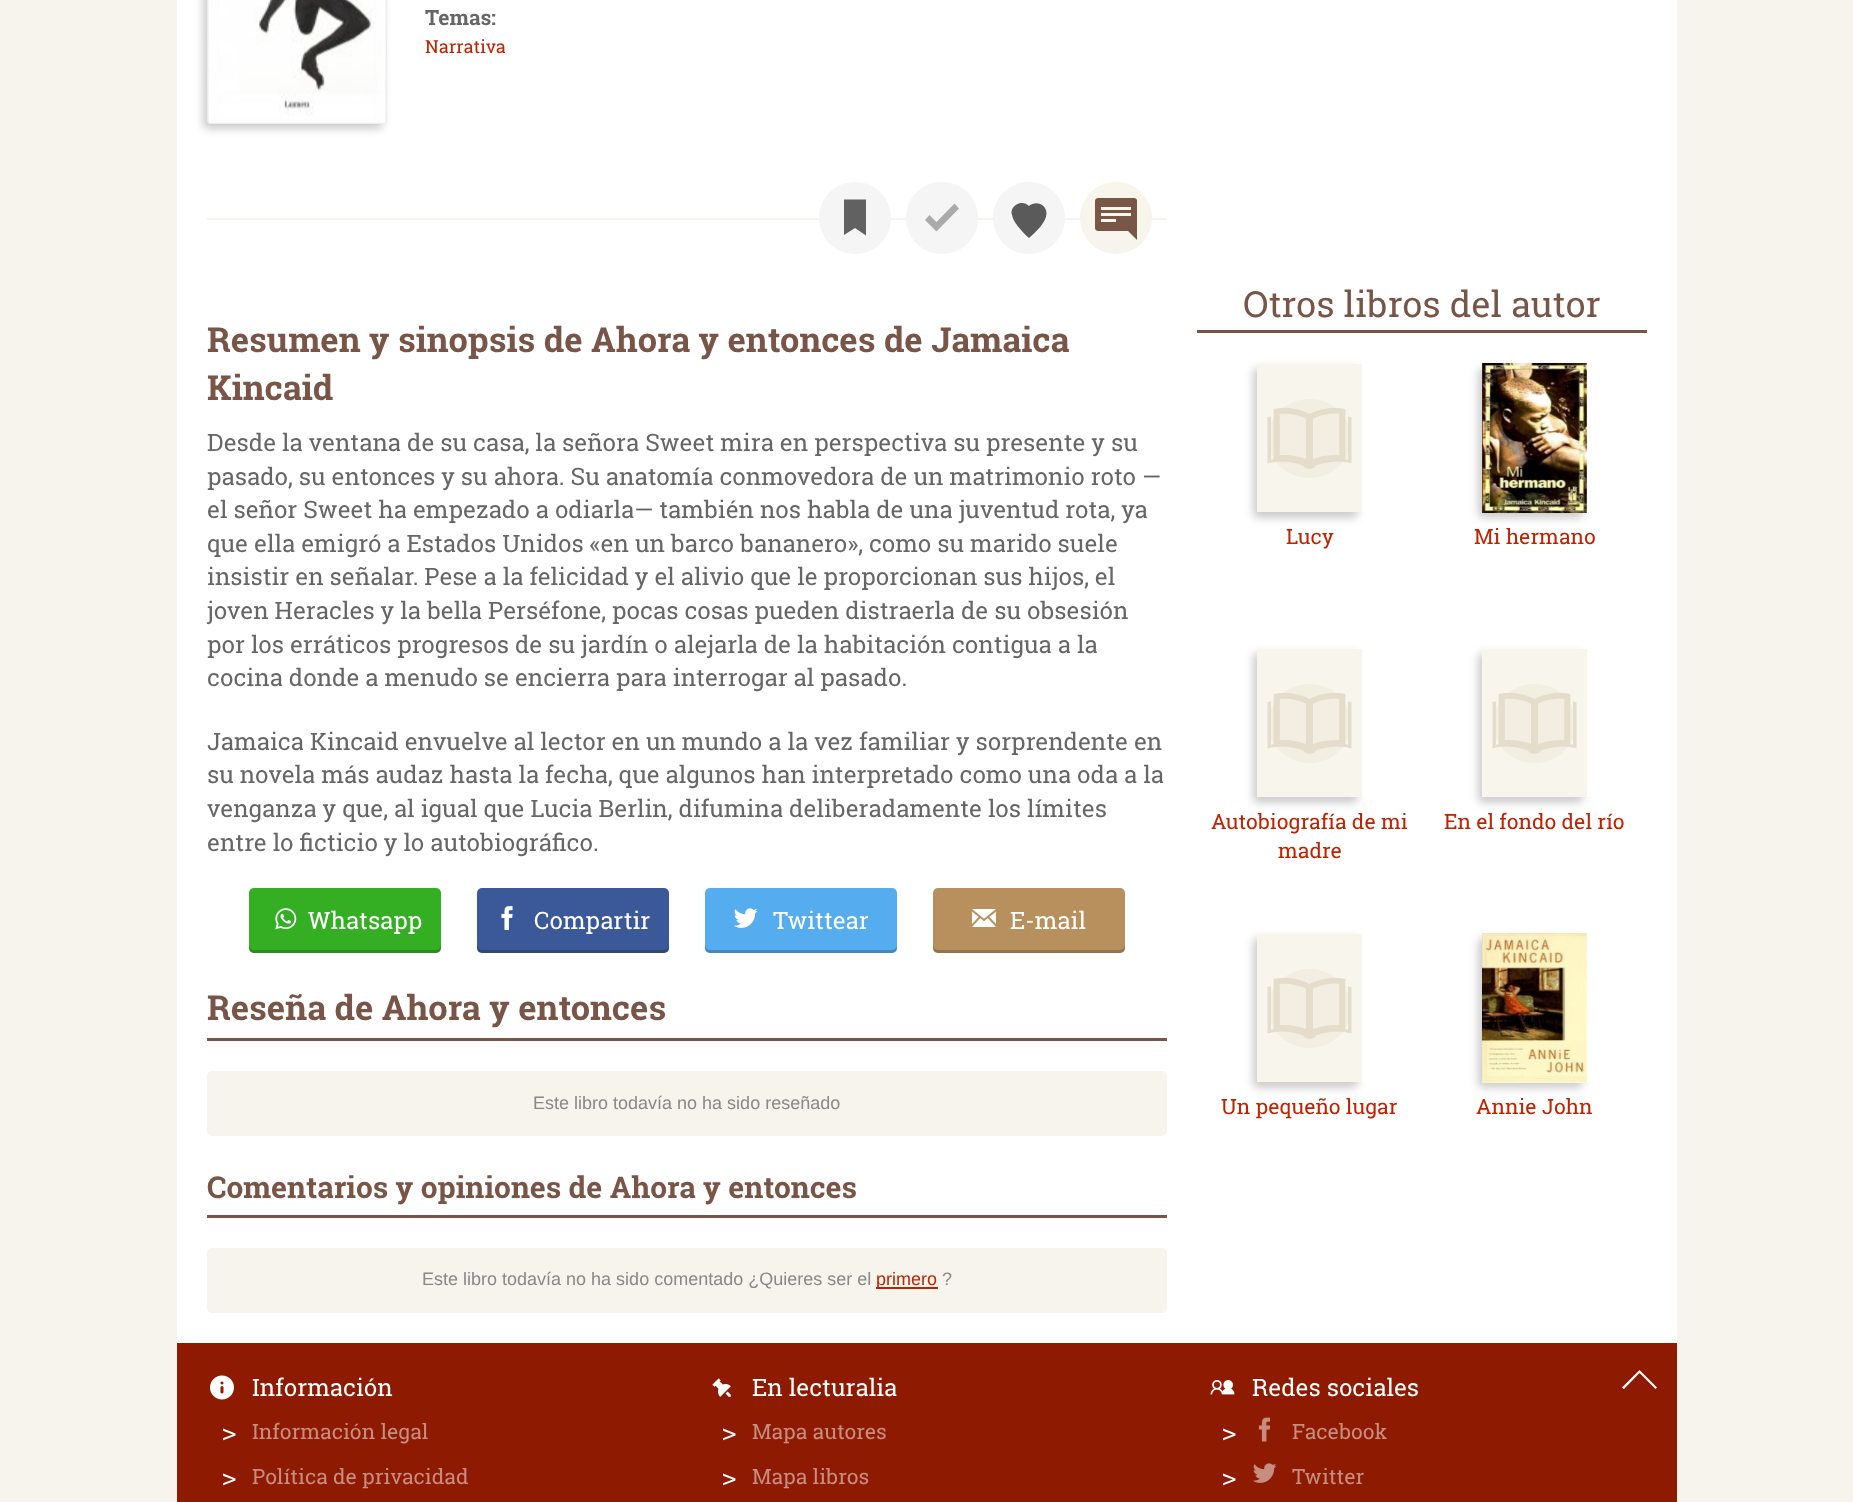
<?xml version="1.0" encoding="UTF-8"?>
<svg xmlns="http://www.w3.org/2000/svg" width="1853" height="1502">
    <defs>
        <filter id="blur1" x="-50%" y="-200%" width="200%" height="500%"><feGaussianBlur stdDeviation="4"/></filter>
    </defs>
    <rect width="100%" height="100%" fill="#F6F4EC"/>
    <rect x="177" y="0" width="1500" height="1343" fill="#FFFFFF"/>
    <rect x="203" y="-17" width="180" height="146" rx="5" fill="#000000" fill-opacity="0.2" filter="url(#blur1)"/>
    <image x="207" y="0" width="180" height="124" href="img_01.png"/>
    <text x="425" y="25" font-family="Roboto Slab" font-size="21" font-weight="700" fill="#666666">Temas:</text>
    <text x="425" y="53" font-family="Roboto Slab" font-size="18" fill="#BD2301">Narrativa</text>
    <rect x="207" y="218" width="960" height="2" fill="#F6F4EC"/>
    <path d="M 855 182 C 875 182 891 198 891 218 C 891 238 875 254 855 254 C 835 254 819 238 819 218 C 819 198 835 182 855 182 Z" fill="#F5F5F5"/>
    <path d="M 844 199.5 H 866 V 235.5 L 855 228 L 844 235 Z" fill="#616161"/>
    <path d="M 942 182 C 962 182 978 198 978 218 C 978 238 962 254 942 254 C 922 254 906 238 906 218 C 906 198 922 182 942 182 Z" fill="#F5F5F5"/>
    <path d="M 936.5 222 L 929.5 215 L 925 220 L 936.5 231.5 L 959 208.5 L 954.5 203.5 Z" fill="#AAAAAA"/>
    <path d="M 1029 182 C 1049 182 1065 198 1065 218 C 1065 238 1049 254 1029 254 C 1009 254 993 238 993 218 C 993 198 1009 182 1029 182 Z" fill="#F5F5F5"/>
    <path d="M 1046.5 213.5 C 1046.5 204 1035.5 200 1029 206 C 1023 199.5 1011 204.5 1011.5 213.5 L 1012 214.5 C 1013 224.5 1029 238 1029 238 C 1035.5 232.5 1046.5 222 1046.5 213.5" fill="#5A5A5A"/>
    <circle cx="1116" cy="218" r="36" fill="#F6F4EC"/>
    <image x="1086" y="182" width="60" height="58" href="img_02.png"/>
    <text font-family="Roboto Slab" font-size="34.5" font-weight="700" fill="#795548">
        <tspan x="207" y="352">Resumen y sinopsis de Ahora y entonces de Jamaica</tspan>
        <tspan x="207" y="400">Kincaid</tspan>
    </text>
    <text font-family="Roboto Slab" font-size="24" fill="#666666">
        <tspan x="207" y="451">Desde la ventana de su casa, la señora Sweet mira en perspectiva su presente y su</tspan>
        <tspan x="207" y="485">pasado, su entonces y su ahora. Su anatomía conmovedora de un matrimonio roto —</tspan>
        <tspan x="207" y="518">el señor Sweet ha empezado a odiarla— también nos habla de una juventud rota, ya</tspan>
        <tspan x="207" y="552">que ella emigró a Estados Unidos «en un barco bananero», como su marido suele</tspan>
        <tspan x="207" y="585">insistir en señalar. Pese a la felicidad y el alivio que le proporcionan sus hijos, el</tspan>
        <tspan x="207" y="619">joven Heracles y la bella Perséfone, pocas cosas pueden distraerla de su obsesión</tspan>
        <tspan x="207" y="653">por los erráticos progresos de su jardín o alejarla de la habitación contigua a la</tspan>
        <tspan x="207" y="686">cocina donde a menudo se encierra para interrogar al pasado.</tspan>
    </text>
    <text font-family="Roboto Slab" font-size="24" fill="#666666">
        <tspan x="207" y="750">Jamaica Kincaid envuelve al lector en un mundo a la vez familiar y sorprendente en</tspan>
        <tspan x="207" y="783">su novela más audaz hasta la fecha, que algunos han interpretado como una oda a la</tspan>
        <tspan x="207" y="817">venganza y que, al igual que Lucia Berlin, difumina deliberadamente los límites</tspan>
        <tspan x="207" y="851">entre lo ficticio y lo autobiográfico.</tspan>
    </text>
    <rect x="249" y="888" width="192" height="65" rx="5" fill="#34AF23"/>
    <path d="M 249 945 V 948 C 249 951 251 953 254 953 H 436 C 439 953 441 951 441 948 V 945 C 441 947 439 950 436 950 H 254 C 251 950 249 947 249 945 Z" fill="#000000" fill-opacity="0.2"/>
    <image x="275" y="908" width="22" height="22" href="img_03.png"/>
    <text x="308" y="929" font-family="Roboto Slab" font-size="24" fill="#FFFFFF">Whatsapp</text>
    <rect x="477" y="888" width="192" height="65" rx="5" fill="#3B5998"/>
    <path d="M 477 945 V 948 C 477 951 479 953 482 953 H 664 C 667 953 669 951 669 948 V 945 C 669 947 667 950 664 950 H 482 C 479 950 477 947 477 945 Z" fill="#000000" fill-opacity="0.2"/>
    <image x="501" y="906" width="12" height="24" href="img_04.png"/>
    <text x="534" y="929" font-family="Roboto Slab" font-size="24" fill="#FFFFFF">Compartir</text>
    <rect x="705" y="888" width="192" height="65" rx="5" fill="#55ACEE"/>
    <path d="M 705 945 V 948 C 705 951 707 953 710 953 H 892 C 895 953 897 951 897 948 V 945 C 897 947 895 950 892 950 H 710 C 707 950 705 947 705 945 Z" fill="#000000" fill-opacity="0.2"/>
    <image x="734" y="908" width="24" height="20" href="img_05.png"/>
    <text x="773" y="929" font-family="Roboto Slab" font-size="24" fill="#FFFFFF">Twittear</text>
    <rect x="933" y="888" width="192" height="65" rx="5" fill="#B7905D"/>
    <path d="M 933 945 V 948 C 933 951 935 953 938 953 H 1120 C 1123 953 1125 951 1125 948 V 945 C 1125 947 1123 950 1120 950 H 938 C 935 950 933 947 933 945 Z" fill="#000000" fill-opacity="0.2"/>
    <image x="972" y="909" width="24" height="18" href="img_06.png"/>
    <text x="1010" y="929" font-family="Roboto Slab" font-size="24" fill="#FFFFFF">E-mail</text>
    <rect x="207" y="1038" width="960" height="3" fill="#795548"/>
    <text x="207" y="1020" font-family="Roboto Slab" font-size="34.5" font-weight="700" fill="#795548">Reseña de Ahora y entonces</text>
    <rect x="207" y="1071" width="960" height="65" rx="5" fill="#F6F4EC"/>
    <text x="533" y="1109" font-family="Liberation Sans" font-size="18" fill="#888888">Este libro todavía no ha sido reseñado</text>
    <rect x="207" y="1215" width="960" height="3" fill="#795548"/>
    <text x="207" y="1198" font-family="Roboto Slab" font-size="30" font-weight="700" fill="#795548">Comentarios y opiniones de Ahora y entonces</text>
    <rect x="207" y="1248" width="960" height="65" rx="5" fill="#F6F4EC"/>
    <text x="422" y="1285" font-family="Liberation Sans" font-size="18" fill="#888888">Este libro todavía no ha sido comentado ¿Quieres ser el</text>
    <rect x="876" y="1287" width="62" height="2" fill="#BD2301"/>
    <text x="876" y="1285" font-family="Liberation Sans" font-size="18" fill="#BD2301">primero</text>
    <text x="942" y="1285" font-family="Liberation Sans" font-size="18" fill="#888888">?</text>
    <rect x="1197" y="330" width="450" height="3" fill="#795548"/>
    <text x="1243" y="317" font-family="Roboto Slab" font-size="36" fill="#795548">Otros libros del autor</text>
    <rect x="1253" y="368" width="105" height="150" rx="5" fill="#000000" fill-opacity="0.2" filter="url(#blur1)"/>
    <rect x="1257" y="368" width="180" height="144" rx="5" fill="#FFFFFF"/>
    <image x="1257" y="364" width="105" height="148" href="img_07.png"/>
    <text x="1286" y="544" font-family="Roboto Slab" font-size="21" fill="#BD2301">Lucy</text>
    <rect x="1478" y="368" width="105" height="150" rx="5" fill="#000000" fill-opacity="0.2" filter="url(#blur1)"/>
    <rect x="1482" y="368" width="180" height="144" rx="5" fill="#FFFFFF"/>
    <image x="1482" y="363" width="105" height="150" href="img_08.png"/>
    <text x="1474" y="544" font-family="Roboto Slab" font-size="21" fill="#BD2301">Mi hermano</text>
    <rect x="1253" y="653" width="105" height="150" rx="5" fill="#000000" fill-opacity="0.2" filter="url(#blur1)"/>
    <rect x="1257" y="653" width="180" height="144" rx="5" fill="#FFFFFF"/>
    <image x="1257" y="649" width="105" height="148" href="img_07.png"/>
    <text x="1211" y="829" font-family="Roboto Slab" font-size="21" fill="#BD2301">Autobiografía de mi</text>
    <text x="1278" y="858" font-family="Roboto Slab" font-size="21" fill="#BD2301">madre</text>
    <rect x="1478" y="653" width="105" height="150" rx="5" fill="#000000" fill-opacity="0.2" filter="url(#blur1)"/>
    <rect x="1482" y="653" width="180" height="144" rx="5" fill="#FFFFFF"/>
    <image x="1482" y="649" width="105" height="148" href="img_07.png"/>
    <text x="1444" y="829" font-family="Roboto Slab" font-size="21" fill="#BD2301">En el fondo del río</text>
    <rect x="1253" y="938" width="105" height="150" rx="5" fill="#000000" fill-opacity="0.2" filter="url(#blur1)"/>
    <rect x="1257" y="938" width="180" height="144" rx="5" fill="#FFFFFF"/>
    <image x="1257" y="934" width="105" height="148" href="img_07.png"/>
    <text x="1221" y="1114" font-family="Roboto Slab" font-size="21" fill="#BD2301">Un pequeño lugar</text>
    <rect x="1478" y="938" width="105" height="150" rx="5" fill="#000000" fill-opacity="0.2" filter="url(#blur1)"/>
    <rect x="1482" y="938" width="180" height="144" rx="5" fill="#FFFFFF"/>
    <image x="1482" y="933" width="105" height="150" href="img_09.png"/>
    <text x="1476" y="1114" font-family="Roboto Slab" font-size="21" fill="#BD2301">Annie John</text>
    <rect x="177" y="1343" width="1500" height="159" fill="#8E1A01"/>
    <image x="210" y="1375" width="24" height="25" href="img_10.png"/>
    <text x="252" y="1396" font-family="Roboto Slab" font-size="24" fill="#FFFFFF">Información</text>
    <text x="222" y="1442" font-family="DejaVu Sans Mono" font-size="24" fill="#FFFFFF">&gt;</text>
    <text x="252" y="1439" font-family="Roboto Slab" font-size="21" fill="#C78D80">Información legal</text>
    <text x="222" y="1487" font-family="DejaVu Sans Mono" font-size="24" fill="#FFFFFF">&gt;</text>
    <text x="252" y="1484" font-family="Roboto Slab" font-size="21" fill="#C78D80">Política de privacidad</text>
    <image x="712" y="1378" width="19" height="19" href="img_11.png"/>
    <text x="752" y="1396" font-family="Roboto Slab" font-size="24" fill="#FFFFFF">En lecturalia</text>
    <text x="722" y="1442" font-family="DejaVu Sans Mono" font-size="24" fill="#FFFFFF">&gt;</text>
    <text x="752" y="1439" font-family="Roboto Slab" font-size="21" fill="#C78D80">Mapa autores</text>
    <text x="722" y="1487" font-family="DejaVu Sans Mono" font-size="24" fill="#FFFFFF">&gt;</text>
    <text x="752" y="1484" font-family="Roboto Slab" font-size="21" fill="#C78D80">Mapa libros</text>
    <image x="1210" y="1380" width="25" height="15" href="img_12.png"/>
    <text x="1252" y="1396" font-family="Roboto Slab" font-size="24" fill="#FFFFFF">Redes sociales</text>
    <text x="1222" y="1442" font-family="DejaVu Sans Mono" font-size="24" fill="#FFFFFF">&gt;</text>
    <image x="1258" y="1417" width="13" height="25" href="img_13.png"/>
    <text x="1292" y="1439" font-family="Roboto Slab" font-size="21" fill="#C78D80">Facebook</text>
    <text x="1222" y="1487" font-family="DejaVu Sans Mono" font-size="24" fill="#FFFFFF">&gt;</text>
    <image x="1253" y="1463" width="24" height="20" href="img_14.png"/>
    <text x="1292" y="1484" font-family="Roboto Slab" font-size="21" fill="#C78D80">Twitter</text>
    <path d="M 1624 1389 L 1639.5 1373 L 1655.5 1389 L 1657 1387.5 L 1639.5 1370 L 1622 1387.5 Z" fill="#FFFFFF"/>
</svg>
